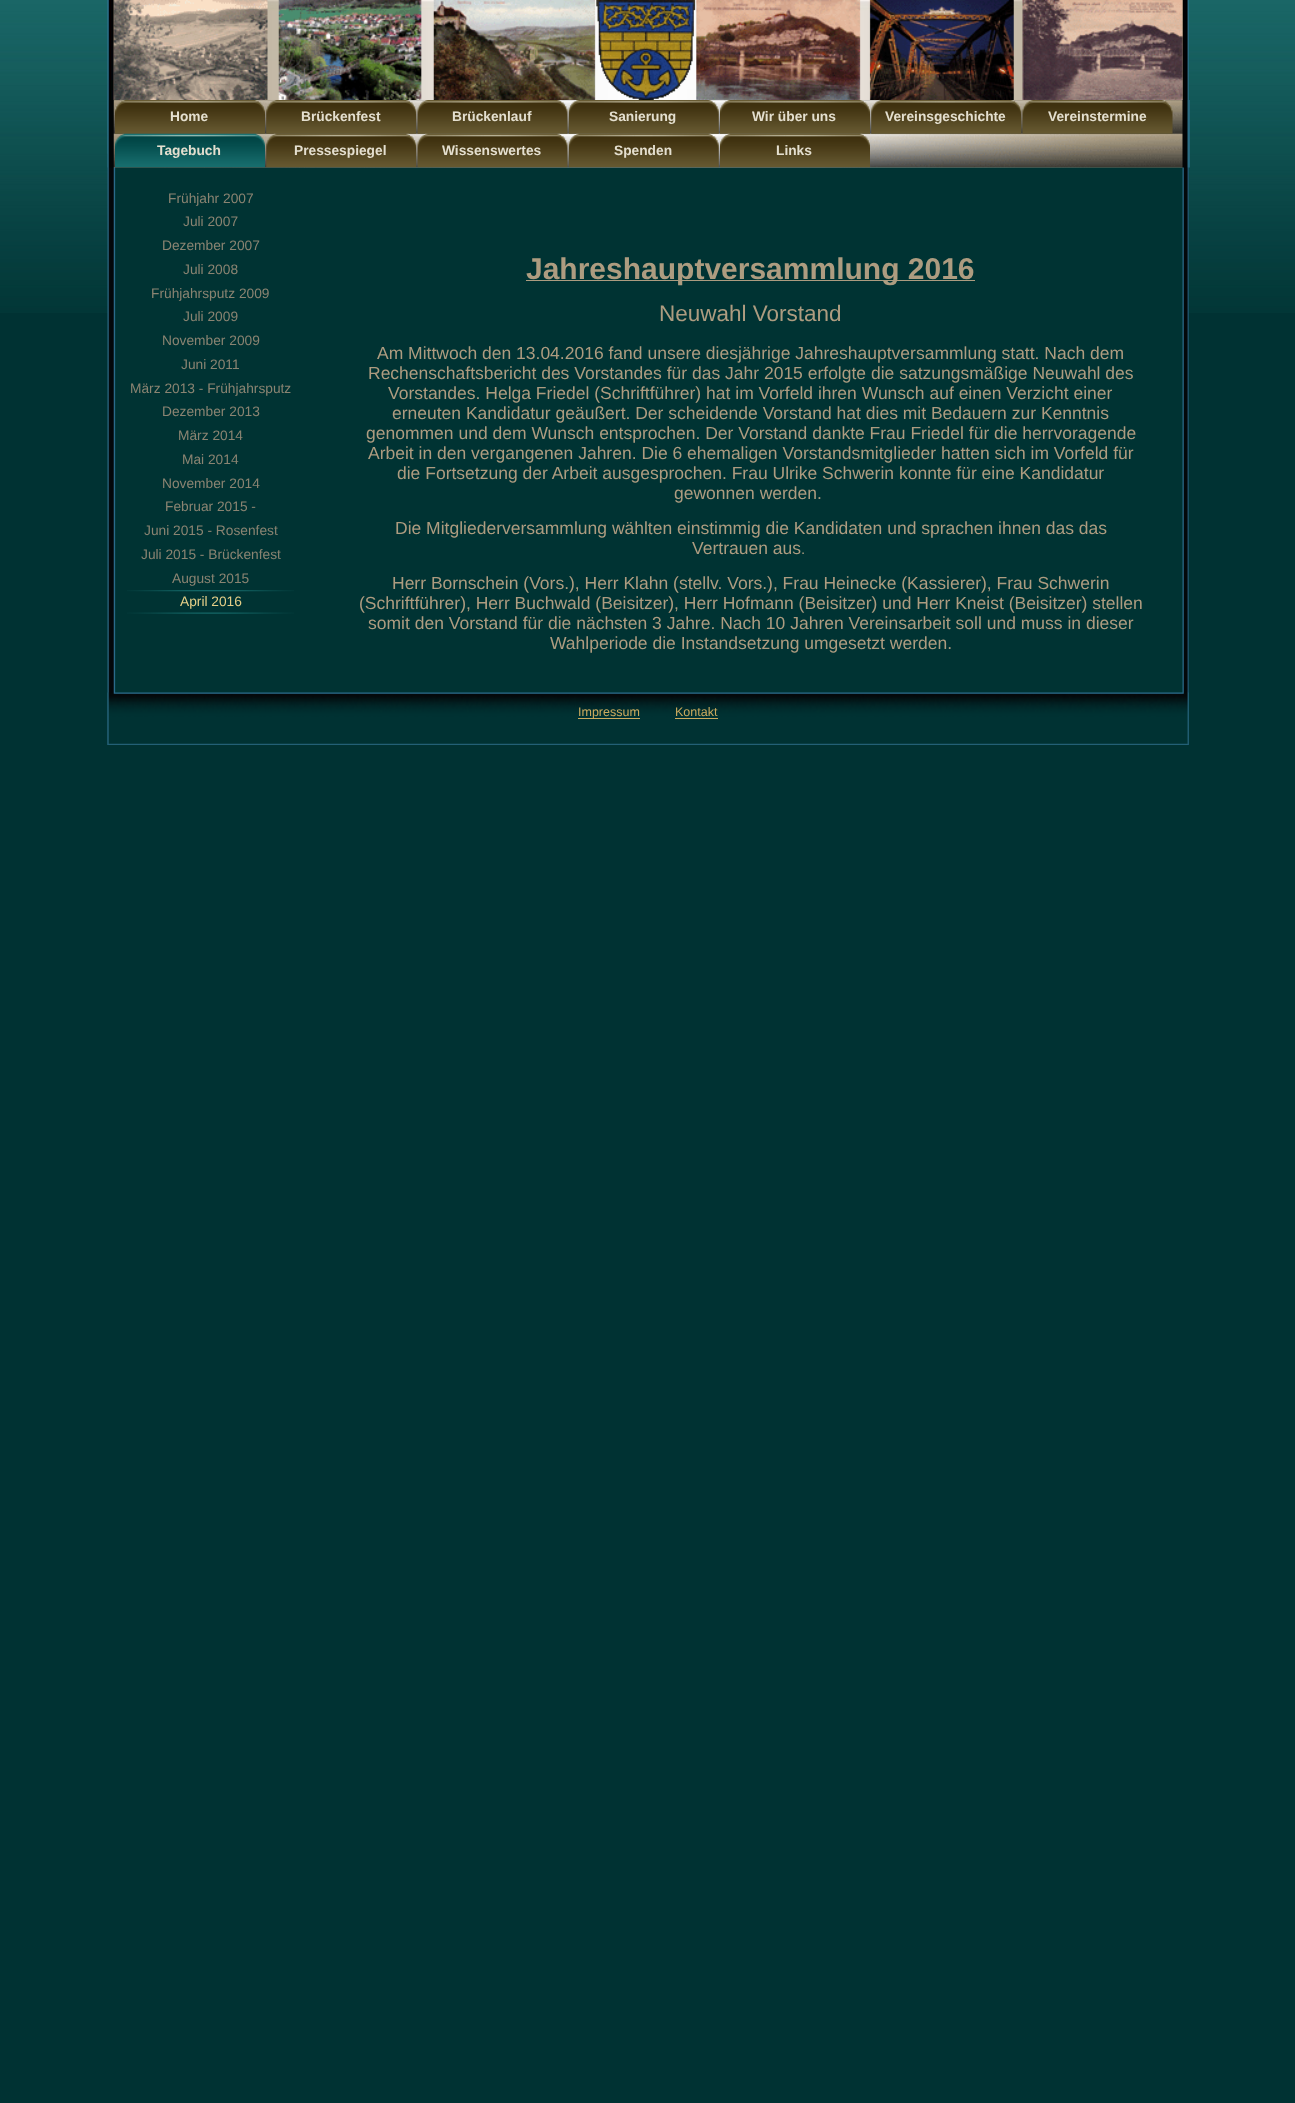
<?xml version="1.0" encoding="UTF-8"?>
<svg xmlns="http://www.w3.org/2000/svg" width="1295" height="2103">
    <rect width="100%" height="100%" fill="#003233"/>
    <image x="0" y="0" width="1295" height="313" href="img_01.png"/>
    <image x="107" y="0" width="1082" height="745" href="img_02.png"/>
    <image x="107" y="0" width="1082" height="154" href="img_03.png"/>
    <image x="113" y="0" width="1070" height="100" href="img_04.png"/>
    <image x="107" y="100" width="1083" height="68" href="img_05.png"/>
    <image x="115" y="100" width="150" height="34" href="img_06.png"/>
    <text x="170" y="121" font-family="Liberation Sans" font-size="13.75" font-weight="700" fill="#E4DFCF">Home</text>
    <image x="266" y="100" width="151" height="34" href="img_07.png"/>
    <text x="301" y="121" font-family="Liberation Sans" font-size="13.75" font-weight="700" fill="#E4DFCF">Brückenfest</text>
    <image x="417" y="100" width="151" height="34" href="img_08.png"/>
    <text x="452" y="121" font-family="Liberation Sans" font-size="13.75" font-weight="700" fill="#E4DFCF">Brückenlauf</text>
    <image x="568" y="100" width="151" height="34" href="img_09.png"/>
    <text x="609" y="121" font-family="Liberation Sans" font-size="13.75" font-weight="700" fill="#E4DFCF">Sanierung</text>
    <image x="720" y="100" width="150" height="34" href="img_10.png"/>
    <text x="752" y="121" font-family="Liberation Sans" font-size="13.75" font-weight="700" fill="#E4DFCF">Wir über uns</text>
    <image x="871" y="100" width="151" height="34" href="img_11.png"/>
    <text x="885" y="121" font-family="Liberation Sans" font-size="13.75" font-weight="700" fill="#E4DFCF">Vereinsgeschichte</text>
    <image x="1022" y="100" width="151" height="34" href="img_12.png"/>
    <text x="1048" y="121" font-family="Liberation Sans" font-size="13.75" font-weight="700" fill="#E4DFCF">Vereinstermine</text>
    <image x="115" y="133" width="150" height="35" href="img_13.png"/>
    <text x="157" y="155" font-family="Liberation Sans" font-size="13.75" font-weight="700" fill="#E4DFCF">Tagebuch</text>
    <image x="266" y="133" width="151" height="35" href="img_14.png"/>
    <text x="294" y="155" font-family="Liberation Sans" font-size="13.75" font-weight="700" fill="#E4DFCF">Pressespiegel</text>
    <image x="417" y="133" width="151" height="35" href="img_15.png"/>
    <text x="442" y="155" font-family="Liberation Sans" font-size="13.75" font-weight="700" fill="#E4DFCF">Wissenswertes</text>
    <image x="568" y="133" width="151" height="35" href="img_16.png"/>
    <text x="614" y="155" font-family="Liberation Sans" font-size="13.75" font-weight="700" fill="#E4DFCF">Spenden</text>
    <image x="720" y="133" width="150" height="35" href="img_17.png"/>
    <text x="776" y="155" font-family="Liberation Sans" font-size="13.75" font-weight="700" fill="#E4DFCF">Links</text>
    <text x="168" y="203" font-family="Liberation Sans" font-size="13.75" fill="#8A8472">Frühjahr 2007</text>
    <text x="183" y="226" font-family="Liberation Sans" font-size="13.75" fill="#8A8472">Juli 2007</text>
    <text x="162" y="250" font-family="Liberation Sans" font-size="13.75" fill="#8A8472">Dezember 2007</text>
    <text x="183" y="274" font-family="Liberation Sans" font-size="13.75" fill="#8A8472">Juli 2008</text>
    <text x="151" y="298" font-family="Liberation Sans" font-size="13.75" fill="#8A8472">Frühjahrsputz 2009</text>
    <text x="183" y="321" font-family="Liberation Sans" font-size="13.75" fill="#8A8472">Juli 2009</text>
    <text x="162" y="345" font-family="Liberation Sans" font-size="13.75" fill="#8A8472">November 2009</text>
    <text x="181" y="369" font-family="Liberation Sans" font-size="13.75" fill="#8A8472">Juni 2011</text>
    <text x="130" y="393" font-family="Liberation Sans" font-size="13.75" fill="#8A8472">März 2013 - Frühjahrsputz</text>
    <text x="162" y="416" font-family="Liberation Sans" font-size="13.75" fill="#8A8472">Dezember 2013</text>
    <text x="178" y="440" font-family="Liberation Sans" font-size="13.75" fill="#8A8472">März 2014</text>
    <text x="182" y="464" font-family="Liberation Sans" font-size="13.75" fill="#8A8472">Mai 2014</text>
    <text x="162" y="488" font-family="Liberation Sans" font-size="13.75" fill="#8A8472">November 2014</text>
    <text x="165" y="511" font-family="Liberation Sans" font-size="13.75" fill="#8A8472">Februar 2015 -</text>
    <text x="144" y="535" font-family="Liberation Sans" font-size="13.75" fill="#8A8472">Juni 2015 - Rosenfest</text>
    <text x="141" y="559" font-family="Liberation Sans" font-size="13.75" fill="#8A8472">Juli 2015 - Brückenfest</text>
    <text x="172" y="583" font-family="Liberation Sans" font-size="13.75" fill="#8A8472">August 2015</text>
    <image x="127" y="590" width="167" height="24" href="img_18.png"/>
    <text x="180" y="606" font-family="Liberation Sans" font-size="13.75" fill="#E4CF88">April 2016</text>
    <rect x="526" y="280" width="449" height="1" fill="#AD9C80"/>
    <text x="526" y="279" font-family="Liberation Sans" font-size="30" font-weight="700" fill="#AD9C80">Jahreshauptversammlung 2016</text>
    <text x="659" y="321" font-family="Liberation Sans" font-size="22.5" fill="#AD9C80">Neuwahl Vorstand</text>
    <text x="377" y="359" font-family="Liberation Sans" font-size="17.5" fill="#AD9C80">Am Mittwoch</text>
    <text x="482" y="359" font-family="Liberation Sans" font-size="17.5" fill="#AD9C80">den 13.04.2016 fand unsere diesjährige Jahreshauptversammlung statt. Nach dem</text>
    <text x="368" y="379" font-family="Liberation Sans" font-size="17.5" fill="#AD9C80">Rechenschaftsbericht des Vorstandes für das Jahr 2015 erfolgte die satzungsmäßige Neuwahl des</text>
    <text x="388" y="399" font-family="Liberation Sans" font-size="17.5" fill="#AD9C80">Vorstandes. Helga Friedel (Schriftführer) hat im Vorfeld ihren Wunsch auf einen Verzicht einer</text>
    <text x="392" y="419" font-family="Liberation Sans" font-size="17.5" fill="#AD9C80">erneuten Kandidatur geäußert. Der scheidende Vorstand hat dies mit Bedauern zur Kenntnis</text>
    <text x="366" y="439" font-family="Liberation Sans" font-size="17.5" fill="#AD9C80">genommen und dem Wunsch entsprochen. Der Vorstand dankte Frau Friedel für die herrvoragende</text>
    <text x="368" y="459" font-family="Liberation Sans" font-size="17.5" fill="#AD9C80">Arbeit in den vergangenen Jahren. Die 6 ehemaligen Vorstandsmitglieder hatten sich im Vorfeld für</text>
    <text x="397" y="479" font-family="Liberation Sans" font-size="17.5" fill="#AD9C80">die Fortsetzung der Arbeit ausgesprochen. Frau Ulrike Schwerin konnte für eine Kandidatur</text>
    <text x="674" y="499" font-family="Liberation Sans" font-size="17.5" fill="#AD9C80">gewonnen werden.</text>
    <text x="395" y="534" font-family="Liberation Sans" font-size="17.5" fill="#AD9C80">Die Mitgliederversammlung wählten einstimmig die Kandidaten und sprachen ihnen das das</text>
    <text x="692" y="554" font-family="Liberation Sans" font-size="17.5" fill="#AD9C80">Vertrauen aus</text>
    <text x="801" y="554" font-family="Liberation Sans" font-size="15" fill="#AD9C80">.</text>
    <text x="392" y="589" font-family="Liberation Sans" font-size="17.5" fill="#AD9C80">Herr Bornschein (Vors.), Herr Klahn (stellv. Vors.), Frau Heinecke (Kassierer), Frau Schwerin</text>
    <text x="359" y="609" font-family="Liberation Sans" font-size="17.5" fill="#AD9C80">(Schriftführer), Herr Buchwald (Beisitzer), Herr Hofmann (Beisitzer) und Herr Kneist (Beisitzer) stellen</text>
    <text x="368" y="629" font-family="Liberation Sans" font-size="17.5" fill="#AD9C80">somit den Vorstand für die nächsten 3 Jahre. Nach 10 Jahren Vereinsarbeit soll und muss in dieser</text>
    <text x="550" y="649" font-family="Liberation Sans" font-size="17.5" fill="#AD9C80">Wahlperiode die Instandsetzung umgesetzt werden.</text>
    <image x="107" y="692" width="1082" height="53" href="img_19.png"/>
    <rect x="578" y="718" width="62" height="1" fill="#CAAA5E"/>
    <text x="578" y="716" font-family="Liberation Sans" font-size="12.5" fill="#CAAA5E">Impressum</text>
    <text x="675" y="716" font-family="Liberation Sans" font-size="12.5" fill="#CAAA5E">Kontakt</text>
    <rect x="675" y="718" width="43" height="1" fill="#CAAA5E"/>
</svg>
